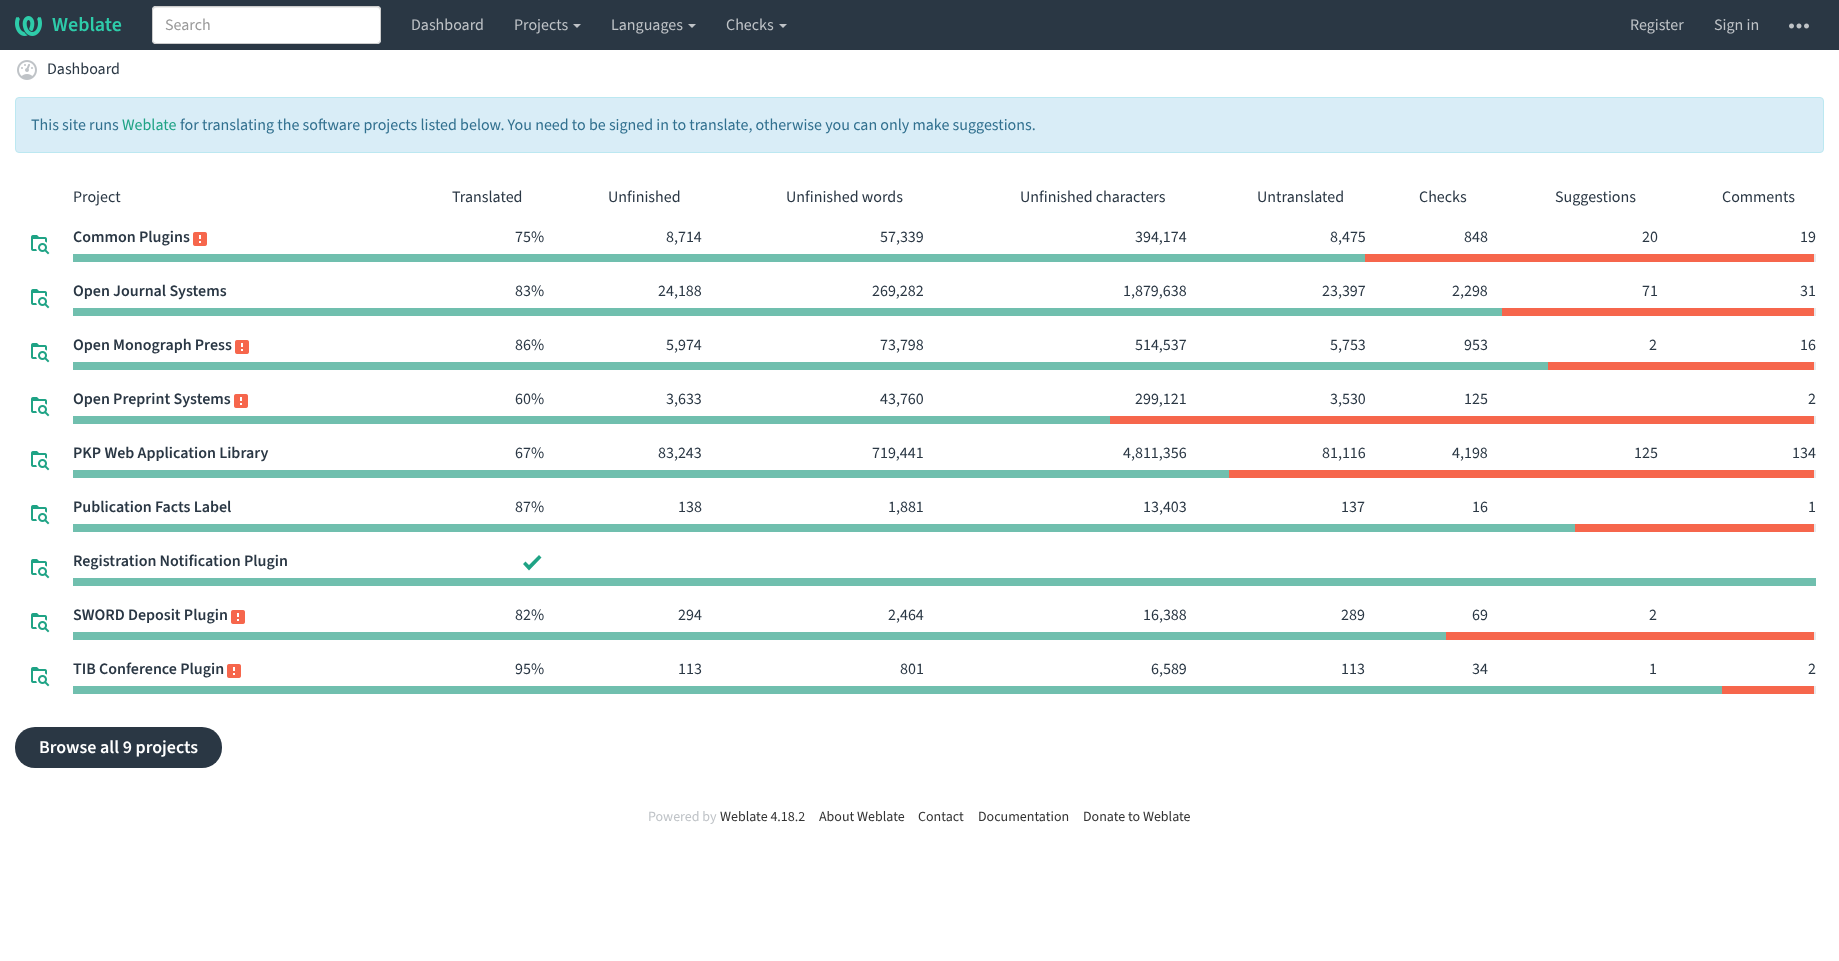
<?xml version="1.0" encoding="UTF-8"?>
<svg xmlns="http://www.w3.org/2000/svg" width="1839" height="961">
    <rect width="100%" height="100%" fill="#FFFFFF"/>
    <rect x="0" y="0" width="1839" height="50" fill="#2A3744"/>
    <image x="15" y="16" width="27" height="20" href="img_01.png"/>
    <text x="52" y="31" font-family="'Source Sans 3'" font-size="20" font-weight="600" fill="#2ECCAA">Weblate</text>
    <rect x="152" y="6" width="229" height="38" rx="4" fill="#FFFFFF"/>
    <path d="M 156 8 H 377 C 379 8 380 9 380 11 V 10 C 380 8 379 7 377 7 H 156 C 154 7 153 8 153 10 V 11 C 153 9 154 8 156 8 Z" fill="#ECECEC"/>
    <rect x="152.5" y="6.5" width="228" height="37" rx="3.5" fill="none" stroke="#CCCCCC"/>
    <text x="165" y="30" font-family="'Source Sans 3'" font-size="16" fill="#999999">Search</text>
    <text x="411" y="30" font-family="'Source Sans 3'" font-size="16" fill="#BFC3C7">Dashboard</text>
    <text x="514" y="30" font-family="'Source Sans 3'" font-size="16" fill="#BFC3C7">Projects</text>
    <path d="M 573 24 H 581 L 577 28 Z" fill="#BFC3C7"/>
    <text x="611" y="30" font-family="'Source Sans 3'" font-size="16" fill="#BFC3C7">Languages</text>
    <path d="M 688 24 H 696 L 692 28 Z" fill="#BFC3C7"/>
    <text x="726" y="30" font-family="'Source Sans 3'" font-size="16" fill="#BFC3C7">Checks</text>
    <path d="M 779 24 H 787 L 783 28 Z" fill="#BFC3C7"/>
    <text x="1630" y="30" font-family="'Source Sans 3'" font-size="16" fill="#BFC3C7">Register</text>
    <text x="1714" y="30" font-family="'Source Sans 3'" font-size="16" fill="#BFC3C7">Sign in</text>
    <image x="1789" y="23" width="20" height="6" href="img_02.png"/>
    <image x="17" y="60" width="20" height="20" href="img_03.png"/>
    <text x="47" y="74" font-family="'Source Sans 3'" font-size="16" fill="#2A3744">Dashboard</text>
    <rect x="15.5" y="97.5" width="1808" height="55" rx="3.5" fill="#D9EDF7" stroke="#BCE8F1"/>
    <text x="31" y="130" font-family="'Source Sans 3'" font-size="16" fill="#31708F">This site runs</text>
    <text x="122" y="130" font-family="'Source Sans 3'" font-size="16" fill="#1FA385">Weblate</text>
    <text x="180" y="130" font-family="'Source Sans 3'" font-size="16" fill="#31708F">for translating the software projects listed below. You need to be signed in to translate, otherwise you can only make suggestions.</text>
    <text x="73" y="202" font-family="'Source Sans 3'" font-size="16" fill="#2A3744">Project</text>
    <text x="452" y="202" font-family="'Source Sans 3'" font-size="16" fill="#2A3744">Translated</text>
    <text x="608" y="202" font-family="'Source Sans 3'" font-size="16" fill="#2A3744">Unfinished</text>
    <text x="786" y="202" font-family="'Source Sans 3'" font-size="16" fill="#2A3744">Unfinished words</text>
    <text x="1020" y="202" font-family="'Source Sans 3'" font-size="16" fill="#2A3744">Unfinished characters</text>
    <text x="1257" y="202" font-family="'Source Sans 3'" font-size="16" fill="#2A3744">Untranslated</text>
    <text x="1419" y="202" font-family="'Source Sans 3'" font-size="16" fill="#2A3744">Checks</text>
    <text x="1555" y="202" font-family="'Source Sans 3'" font-size="16" fill="#2A3744">Suggestions</text>
    <text x="1722" y="202" font-family="'Source Sans 3'" font-size="16" fill="#2A3744">Comments</text>
    <image x="31" y="235" width="19" height="20" href="img_04.png"/>
    <text x="73" y="242" font-family="'Source Sans 3'" font-size="16" font-weight="600" fill="#2A3744">Common Plugins</text>
    <image x="193" y="232" width="14" height="14" href="img_05.png"/>
    <text x="515" y="242" font-family="'Source Sans 3'" font-size="16" fill="#2A3744">75%</text>
    <text x="666" y="242" font-family="'Source Sans 3'" font-size="16" fill="#2A3744">8,714</text>
    <text x="880" y="242" font-family="'Source Sans 3'" font-size="16" fill="#2A3744">57,339</text>
    <text x="1135" y="242" font-family="'Source Sans 3'" font-size="16" fill="#2A3744">394,174</text>
    <text x="1330" y="242" font-family="'Source Sans 3'" font-size="16" fill="#2A3744">8,475</text>
    <text x="1464" y="242" font-family="'Source Sans 3'" font-size="16" fill="#2A3744">848</text>
    <text x="1642" y="242" font-family="'Source Sans 3'" font-size="16" fill="#2A3744">20</text>
    <text x="1800" y="242" font-family="'Source Sans 3'" font-size="16" fill="#2A3744">19</text>
    <rect x="1814" y="254" width="2" height="8" fill="#E9EAEC"/>
    <rect x="73" y="254" width="1292" height="8" fill="#70BFAE"/>
    <rect x="1365" y="254" width="449" height="8" fill="#F6664C"/>
    <image x="31" y="289" width="19" height="20" href="img_04.png"/>
    <text x="73" y="296" font-family="'Source Sans 3'" font-size="16" font-weight="600" fill="#2A3744">Open Journal Systems</text>
    <text x="515" y="296" font-family="'Source Sans 3'" font-size="16" fill="#2A3744">83%</text>
    <text x="658" y="296" font-family="'Source Sans 3'" font-size="16" fill="#2A3744">24,188</text>
    <text x="872" y="296" font-family="'Source Sans 3'" font-size="16" fill="#2A3744">269,282</text>
    <text x="1123" y="296" font-family="'Source Sans 3'" font-size="16" fill="#2A3744">1,879,638</text>
    <text x="1322" y="296" font-family="'Source Sans 3'" font-size="16" fill="#2A3744">23,397</text>
    <text x="1452" y="296" font-family="'Source Sans 3'" font-size="16" fill="#2A3744">2,298</text>
    <text x="1642" y="296" font-family="'Source Sans 3'" font-size="16" fill="#2A3744">71</text>
    <text x="1800" y="296" font-family="'Source Sans 3'" font-size="16" fill="#2A3744">31</text>
    <rect x="1814" y="308" width="2" height="8" fill="#E9EAEC"/>
    <rect x="73" y="308" width="1429" height="8" fill="#70BFAE"/>
    <rect x="1502" y="308" width="312" height="8" fill="#F6664C"/>
    <image x="31" y="343" width="19" height="20" href="img_04.png"/>
    <text x="73" y="350" font-family="'Source Sans 3'" font-size="16" font-weight="600" fill="#2A3744">Open Monograph Press</text>
    <image x="235" y="340" width="14" height="14" href="img_05.png"/>
    <text x="515" y="350" font-family="'Source Sans 3'" font-size="16" fill="#2A3744">86%</text>
    <text x="666" y="350" font-family="'Source Sans 3'" font-size="16" fill="#2A3744">5,974</text>
    <text x="880" y="350" font-family="'Source Sans 3'" font-size="16" fill="#2A3744">73,798</text>
    <text x="1135" y="350" font-family="'Source Sans 3'" font-size="16" fill="#2A3744">514,537</text>
    <text x="1330" y="350" font-family="'Source Sans 3'" font-size="16" fill="#2A3744">5,753</text>
    <text x="1464" y="350" font-family="'Source Sans 3'" font-size="16" fill="#2A3744">953</text>
    <text x="1649" y="350" font-family="'Source Sans 3'" font-size="16" fill="#2A3744">2</text>
    <text x="1800" y="350" font-family="'Source Sans 3'" font-size="16" fill="#2A3744">16</text>
    <rect x="1814" y="362" width="2" height="8" fill="#E9EAEC"/>
    <rect x="73" y="362" width="1475" height="8" fill="#70BFAE"/>
    <rect x="1548" y="362" width="266" height="8" fill="#F6664C"/>
    <image x="31" y="397" width="19" height="20" href="img_04.png"/>
    <text x="73" y="404" font-family="'Source Sans 3'" font-size="16" font-weight="600" fill="#2A3744">Open Preprint Systems</text>
    <image x="234" y="394" width="14" height="14" href="img_05.png"/>
    <text x="515" y="404" font-family="'Source Sans 3'" font-size="16" fill="#2A3744">60%</text>
    <text x="666" y="404" font-family="'Source Sans 3'" font-size="16" fill="#2A3744">3,633</text>
    <text x="880" y="404" font-family="'Source Sans 3'" font-size="16" fill="#2A3744">43,760</text>
    <text x="1135" y="404" font-family="'Source Sans 3'" font-size="16" fill="#2A3744">299,121</text>
    <text x="1330" y="404" font-family="'Source Sans 3'" font-size="16" fill="#2A3744">3,530</text>
    <text x="1464" y="404" font-family="'Source Sans 3'" font-size="16" fill="#2A3744">125</text>
    <text x="1808" y="404" font-family="'Source Sans 3'" font-size="16" fill="#2A3744">2</text>
    <rect x="1814" y="416" width="2" height="8" fill="#E9EAEC"/>
    <rect x="73" y="416" width="1037" height="8" fill="#70BFAE"/>
    <rect x="1110" y="416" width="704" height="8" fill="#F6664C"/>
    <image x="31" y="451" width="19" height="20" href="img_04.png"/>
    <text x="73" y="458" font-family="'Source Sans 3'" font-size="16" font-weight="600" fill="#2A3744">PKP Web Application Library</text>
    <text x="515" y="458" font-family="'Source Sans 3'" font-size="16" fill="#2A3744">67%</text>
    <text x="658" y="458" font-family="'Source Sans 3'" font-size="16" fill="#2A3744">83,243</text>
    <text x="872" y="458" font-family="'Source Sans 3'" font-size="16" fill="#2A3744">719,441</text>
    <text x="1123" y="458" font-family="'Source Sans 3'" font-size="16" fill="#2A3744">4,811,356</text>
    <text x="1322" y="458" font-family="'Source Sans 3'" font-size="16" fill="#2A3744">81,116</text>
    <text x="1452" y="458" font-family="'Source Sans 3'" font-size="16" fill="#2A3744">4,198</text>
    <text x="1634" y="458" font-family="'Source Sans 3'" font-size="16" fill="#2A3744">125</text>
    <text x="1792" y="458" font-family="'Source Sans 3'" font-size="16" fill="#2A3744">134</text>
    <rect x="1814" y="470" width="2" height="8" fill="#E9EAEC"/>
    <rect x="73" y="470" width="1156" height="8" fill="#70BFAE"/>
    <rect x="1229" y="470" width="585" height="8" fill="#F6664C"/>
    <image x="31" y="505" width="19" height="20" href="img_04.png"/>
    <text x="73" y="512" font-family="'Source Sans 3'" font-size="16" font-weight="600" fill="#2A3744">Publication Facts Label</text>
    <text x="515" y="512" font-family="'Source Sans 3'" font-size="16" fill="#2A3744">87%</text>
    <text x="678" y="512" font-family="'Source Sans 3'" font-size="16" fill="#2A3744">138</text>
    <text x="888" y="512" font-family="'Source Sans 3'" font-size="16" fill="#2A3744">1,881</text>
    <text x="1143" y="512" font-family="'Source Sans 3'" font-size="16" fill="#2A3744">13,403</text>
    <text x="1341" y="512" font-family="'Source Sans 3'" font-size="16" fill="#2A3744">137</text>
    <text x="1472" y="512" font-family="'Source Sans 3'" font-size="16" fill="#2A3744">16</text>
    <text x="1808" y="512" font-family="'Source Sans 3'" font-size="16" fill="#2A3744">1</text>
    <rect x="1814" y="524" width="2" height="8" fill="#E9EAEC"/>
    <rect x="73" y="524" width="1502" height="8" fill="#70BFAE"/>
    <rect x="1575" y="524" width="239" height="8" fill="#F6664C"/>
    <image x="31" y="559" width="19" height="20" href="img_04.png"/>
    <text x="73" y="566" font-family="'Source Sans 3'" font-size="16" font-weight="600" fill="#2A3744">Registration Notification Plugin</text>
    <path d="M 529 570.5 L 523 564 L 525.5 561.5 L 529 565 L 539 555 L 541.5 557.5 Z" fill="#1FA385"/>
    <rect x="73" y="578" width="1743" height="8" fill="#70BFAE"/>
    <image x="31" y="613" width="19" height="20" href="img_04.png"/>
    <text x="73" y="620" font-family="'Source Sans 3'" font-size="16" font-weight="600" fill="#2A3744">SWORD Deposit Plugin</text>
    <image x="231" y="610" width="14" height="14" href="img_05.png"/>
    <text x="515" y="620" font-family="'Source Sans 3'" font-size="16" fill="#2A3744">82%</text>
    <text x="678" y="620" font-family="'Source Sans 3'" font-size="16" fill="#2A3744">294</text>
    <text x="888" y="620" font-family="'Source Sans 3'" font-size="16" fill="#2A3744">2,464</text>
    <text x="1143" y="620" font-family="'Source Sans 3'" font-size="16" fill="#2A3744">16,388</text>
    <text x="1341" y="620" font-family="'Source Sans 3'" font-size="16" fill="#2A3744">289</text>
    <text x="1472" y="620" font-family="'Source Sans 3'" font-size="16" fill="#2A3744">69</text>
    <text x="1649" y="620" font-family="'Source Sans 3'" font-size="16" fill="#2A3744">2</text>
    <rect x="1814" y="632" width="2" height="8" fill="#E9EAEC"/>
    <rect x="73" y="632" width="1373" height="8" fill="#70BFAE"/>
    <rect x="1446" y="632" width="368" height="8" fill="#F6664C"/>
    <image x="31" y="667" width="19" height="20" href="img_04.png"/>
    <text x="73" y="674" font-family="'Source Sans 3'" font-size="16" font-weight="600" fill="#2A3744">TIB Conference Plugin</text>
    <image x="227" y="664" width="14" height="14" href="img_05.png"/>
    <text x="515" y="674" font-family="'Source Sans 3'" font-size="16" fill="#2A3744">95%</text>
    <text x="678" y="674" font-family="'Source Sans 3'" font-size="16" fill="#2A3744">113</text>
    <text x="900" y="674" font-family="'Source Sans 3'" font-size="16" fill="#2A3744">801</text>
    <text x="1151" y="674" font-family="'Source Sans 3'" font-size="16" fill="#2A3744">6,589</text>
    <text x="1341" y="674" font-family="'Source Sans 3'" font-size="16" fill="#2A3744">113</text>
    <text x="1472" y="674" font-family="'Source Sans 3'" font-size="16" fill="#2A3744">34</text>
    <text x="1649" y="674" font-family="'Source Sans 3'" font-size="16" fill="#2A3744">1</text>
    <text x="1808" y="674" font-family="'Source Sans 3'" font-size="16" fill="#2A3744">2</text>
    <rect x="1814" y="686" width="2" height="8" fill="#E9EAEC"/>
    <rect x="73" y="686" width="1649" height="8" fill="#70BFAE"/>
    <rect x="1722" y="686" width="92" height="8" fill="#F6664C"/>
    <rect x="15" y="727" width="207" height="41" rx="20" fill="#2A3744"/>
    <text x="39" y="753" font-family="'Source Sans 3'" font-size="18" font-weight="600" fill="#FFFFFF">Browse all 9 projects</text>
    <text x="648" y="821" font-family="'Source Sans 3'" font-size="14" fill="#BFC3C7">Powered by</text>
    <text x="720" y="821" font-family="'Source Sans 3'" font-size="14" fill="#333333">Weblate 4.18.2</text>
    <text x="819" y="821" font-family="'Source Sans 3'" font-size="14" fill="#333333">About Weblate</text>
    <text x="918" y="821" font-family="'Source Sans 3'" font-size="14" fill="#333333">Contact</text>
    <text x="978" y="821" font-family="'Source Sans 3'" font-size="14" fill="#333333">Documentation</text>
    <text x="1083" y="821" font-family="'Source Sans 3'" font-size="14" fill="#333333">Donate to Weblate</text>
</svg>
